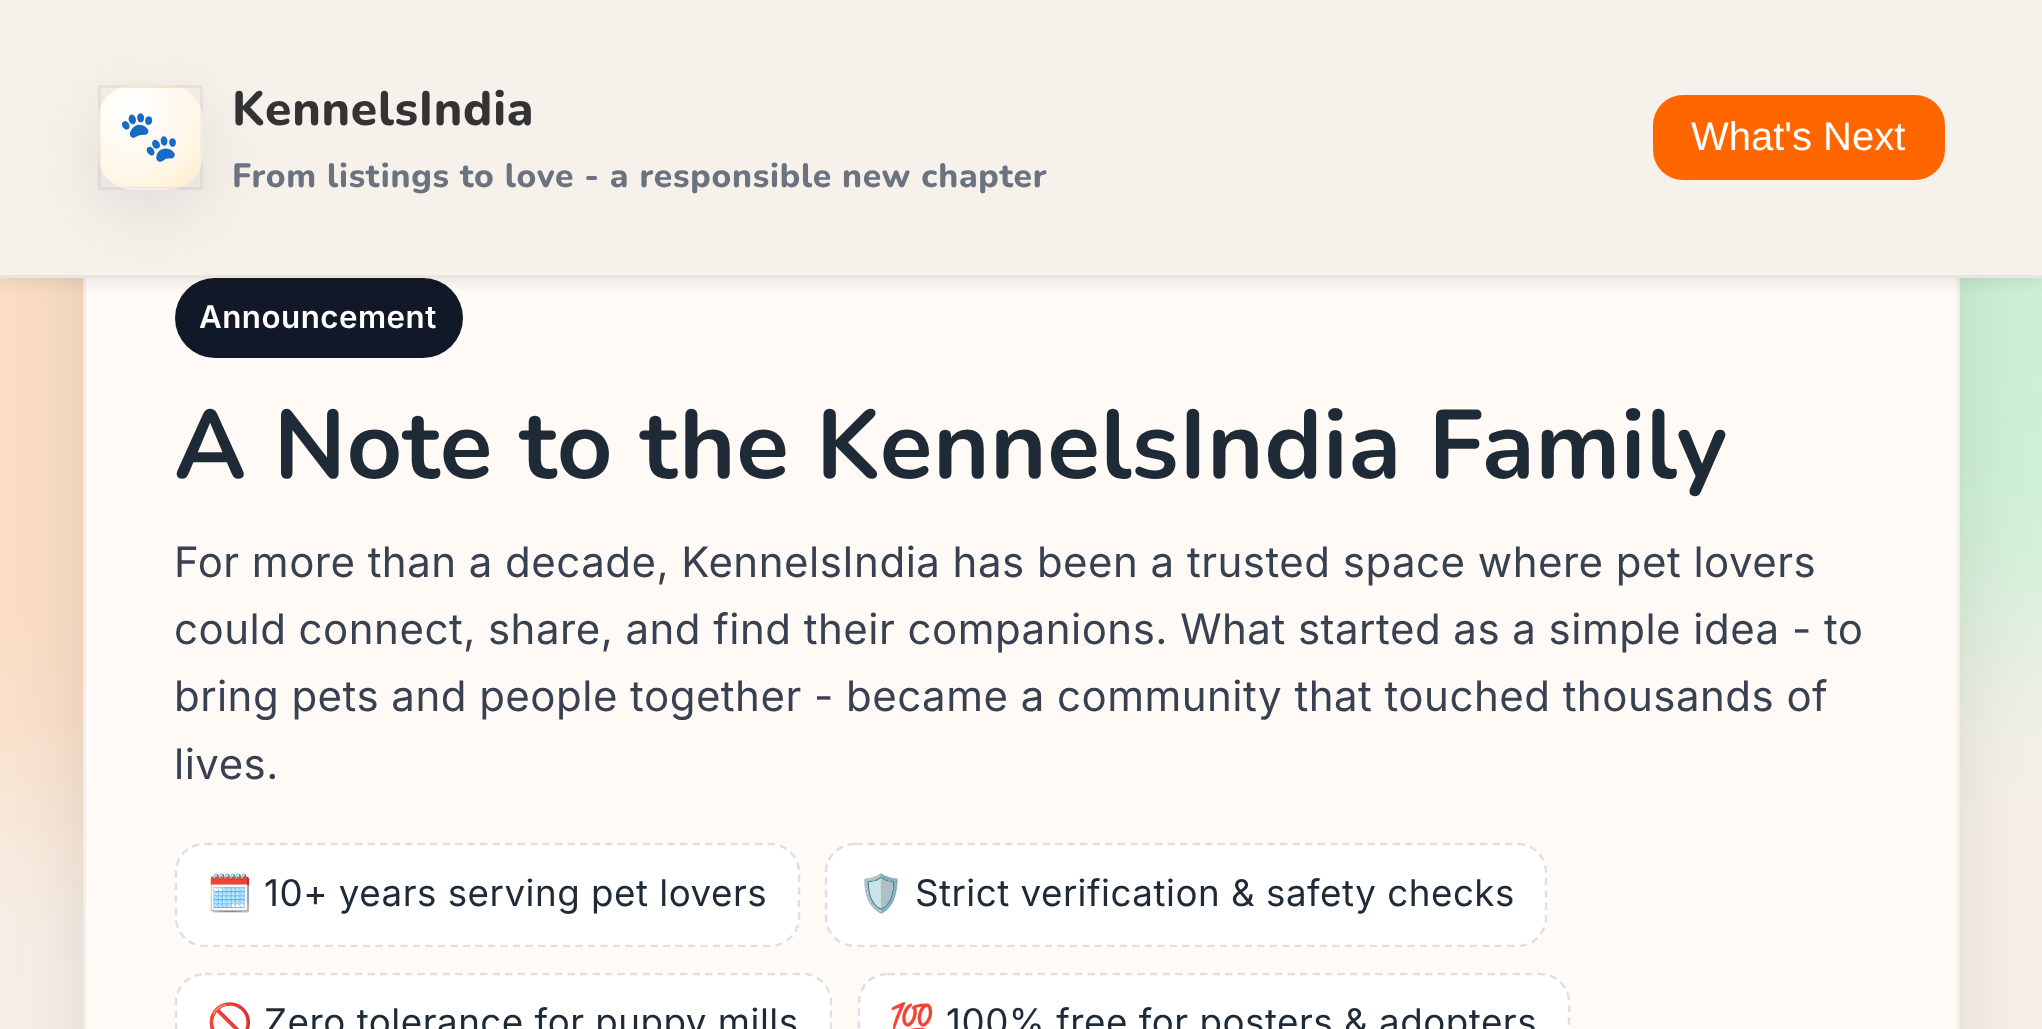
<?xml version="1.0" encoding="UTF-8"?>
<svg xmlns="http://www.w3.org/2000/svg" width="2042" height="1029">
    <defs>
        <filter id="blur1" x="-50%" y="-200%" width="200%" height="500%"><feGaussianBlur stdDeviation="100"/></filter>
        <filter id="blur2" x="-50%" y="-200%" width="200%" height="500%"><feGaussianBlur stdDeviation="35"/></filter>
        <filter id="blur3" x="-50%" y="-200%" width="200%" height="500%"><feGaussianBlur stdDeviation="7.5"/></filter>
        <clipPath id="clip1"><rect x="98" y="85" width="105" height="105" rx="35"/></clipPath>
        <radialGradient id="g1" gradientUnits="userSpaceOnUse" cx="130" cy="7.5" r="120"><stop offset="0" stop-color="#FFFFFF"/><stop offset="0.6" stop-color="#FFF6E6"/><stop offset="1" stop-color="#FFE7BA"/></radialGradient>
        <radialGradient id="g2" gradientUnits="userSpaceOnUse" cx="30" cy="108" r="120"><stop offset="0" stop-color="#FFFFFF"/><stop offset="0.6" stop-color="#FFF6E6"/><stop offset="1" stop-color="#FFE7BA"/></radialGradient>
        <radialGradient id="g3" gradientUnits="userSpaceOnUse" cx="130" cy="108" r="120"><stop offset="0" stop-color="#FFFFFF"/><stop offset="0.6" stop-color="#FFF6E6"/><stop offset="1" stop-color="#FFE7BA"/></radialGradient>
        <radialGradient id="g4" gradientUnits="userSpaceOnUse" cx="230" cy="108" r="120"><stop offset="0" stop-color="#FFFFFF"/><stop offset="0.6" stop-color="#FFF6E6"/><stop offset="1" stop-color="#FFE7BA"/></radialGradient>
        <radialGradient id="g5" gradientUnits="userSpaceOnUse" cx="130" cy="208" r="120"><stop offset="0" stop-color="#FFFFFF"/><stop offset="0.6" stop-color="#FFF6E6"/><stop offset="1" stop-color="#FFE7BA"/></radialGradient>
    </defs>
    <rect width="100%" height="100%" fill="#F6EFE8"/>
    <rect x="-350" y="-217" width="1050" height="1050" rx="525" fill="#FADDC3" filter="url(#blur1)"/>
    <rect x="1543" y="-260" width="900" height="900" rx="450" fill="#CCF0D5" filter="url(#blur1)"/>
    <rect x="83" y="205" width="1877" height="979" rx="50" fill="#111827" fill-opacity="0.1" filter="url(#blur2)"/>
    <rect x="83" y="278" width="1877" height="751" fill="#FFFAF5"/>
    <rect x="84.5" y="186.5" width="1874" height="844" fill="none" stroke="#000000" stroke-opacity="0.05" stroke-width="3"/>
    <rect x="175" y="278" width="288" height="80" rx="40" fill="#111827"/>
    <rect x="0" y="5" width="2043" height="278" fill="#000000" fill-opacity="0.08" filter="url(#blur3)"/>
    <rect x="0" y="0" width="2042" height="275" fill="#F7F1EB"/>
    <rect x="0" y="275" width="2042" height="3" fill="#EBE5DF"/>
    <rect x="98" y="105" width="105" height="105" rx="35" fill="#111827" fill-opacity="0.1" filter="url(#blur2)"/>
    <g clip-path="url(#clip1)">
        <rect x="119" y="85" width="63" height="3" fill="url(#g1)"/>
        <rect x="98" y="108" width="2" height="59" fill="url(#g2)"/>
        <rect x="100" y="88" width="100" height="100" fill="url(#g3)"/>
        <rect x="200" y="106" width="3" height="63" fill="url(#g4)"/>
        <rect x="121" y="188" width="59" height="2" fill="url(#g5)"/>
    </g>
    <rect x="99.5" y="86.5" width="102" height="102" fill="none" stroke="#000000" stroke-opacity="0.05" stroke-width="3"/>
    <text x="118" y="153" font-family="Noto Color Emoji" font-size="50" font-weight="700" letter-spacing="0.75" fill="#333333">🐾</text>
    <text x="232" y="125" font-family="Nunito" font-size="48" font-weight="800" letter-spacing="0.75" fill="#333333">KennelsIndia</text>
    <text x="232" y="187" font-family="Nunito" font-size="33.6" font-weight="800" letter-spacing="0.75" fill="#6B7280">From listings to love - a responsible new chapter</text>
    <rect x="1653" y="95" width="292" height="85" rx="30" fill="#FF6600"/>
    <text x="1691" y="150" font-family="Liberation Sans" font-size="40" fill="#FFFFFF">What's Next</text>
    <text x="199" y="328" font-family="Inter" font-size="31.25" font-weight="600" letter-spacing="0.5" fill="#FFFFFF">Announcement</text>
    <text x="174" y="478" font-family="Nunito" font-size="97" font-weight="700" letter-spacing="0.5" fill="#1F2A37">A Note to the KennelsIndia Family</text>
    <text font-family="Inter" font-size="42" letter-spacing="0.5" fill="#374151">
        <tspan x="174" y="577" word-spacing="-0.1">For more than a decade, KennelsIndia has been a trusted space where pet lovers</tspan>
        <tspan x="174" y="644" word-spacing="-0.1">could connect, share, and find their companions. What started as a simple idea - to</tspan>
        <tspan x="174" y="711" word-spacing="-0.1">bring pets and people together - became a community that touched thousands of</tspan>
        <tspan x="174" y="779">lives.</tspan>
    </text>
    <rect x="175" y="843" width="625" height="105" rx="30" fill="#FFFFFF"/>
    <path d="M 205 844 H 770 C 786 844 799 856.5 799 872.5 V 917.5 C 799 933.5 786 946 770 946 H 205 C 189 946 176 933.5 176 917.5 V 872.5 C 176 856.5 189 844 205 844 Z" fill="none" stroke="#000000" stroke-opacity="0.12" stroke-width="2.5" stroke-dasharray="7.5 5"/>
    <text x="207" y="906" font-family="Noto Color Emoji" font-size="36.75" letter-spacing="0.5" fill="#1F2A37">🗓️</text>
    <text x="264" y="906" font-family="Inter" font-size="36.75" letter-spacing="0.5" fill="#1F2A37">10+ years serving pet lovers</text>
    <rect x="825" y="843" width="723" height="105" rx="30" fill="#FFFFFF"/>
    <path d="M 855 844 H 1517.5 C 1533.5 844 1546 856.5 1546 872.5 V 917.5 C 1546 933.5 1533.5 946 1517.5 946 H 855 C 839 946 826 933.5 826 917.5 V 872.5 C 826 856.5 839 844 855 844 Z" fill="none" stroke="#000000" stroke-opacity="0.12" stroke-width="2.5" stroke-dasharray="7.5 5"/>
    <text x="858" y="906" font-family="Noto Color Emoji" font-size="36.75" letter-spacing="0.5" fill="#1F2A37">🛡️</text>
    <text x="915" y="906" font-family="Inter" font-size="36.75" letter-spacing="0.5" fill="#1F2A37">Strict verification &amp; safety checks</text>
    <rect x="175" y="973" width="658" height="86" rx="30" fill="#FFFFFF"/>
    <path d="M 205 974 H 802.5 C 818.5 974 831 986.5 831 1002.5 V 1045 C 831 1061 818.5 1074 802.5 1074 H 205 C 189 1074 176 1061 176 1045 V 1002.5 C 176 986.5 189 974 205 974 Z" fill="none" stroke="#000000" stroke-opacity="0.12" stroke-width="2.5" stroke-dasharray="7.5 5"/>
    <text x="207" y="1035" font-family="Noto Color Emoji" font-size="36.75" letter-spacing="0.5" fill="#1F2A37">🚫</text>
    <text x="264" y="1035" font-family="Inter" font-size="36.75" letter-spacing="0.5" fill="#1F2A37">Zero tolerance for puppy mills</text>
    <rect x="858" y="973" width="712" height="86" rx="30" fill="#FFFFFF"/>
    <path d="M 887.5 974 H 1540 C 1556 974 1569 986.5 1569 1002.5 V 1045 C 1569 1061 1556 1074 1540 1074 H 887.5 C 871.5 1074 859 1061 859 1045 V 1002.5 C 859 986.5 871.5 974 887.5 974 Z" fill="none" stroke="#000000" stroke-opacity="0.12" stroke-width="2.5" stroke-dasharray="7.5 5"/>
    <text x="889" y="1035" font-family="Noto Color Emoji" font-size="36.75" letter-spacing="0.5" fill="#1F2A37">💯</text>
    <text x="946" y="1035" font-family="Inter" font-size="36.75" letter-spacing="0.5" fill="#1F2A37">100% free for posters &amp; adopters</text>
</svg>
